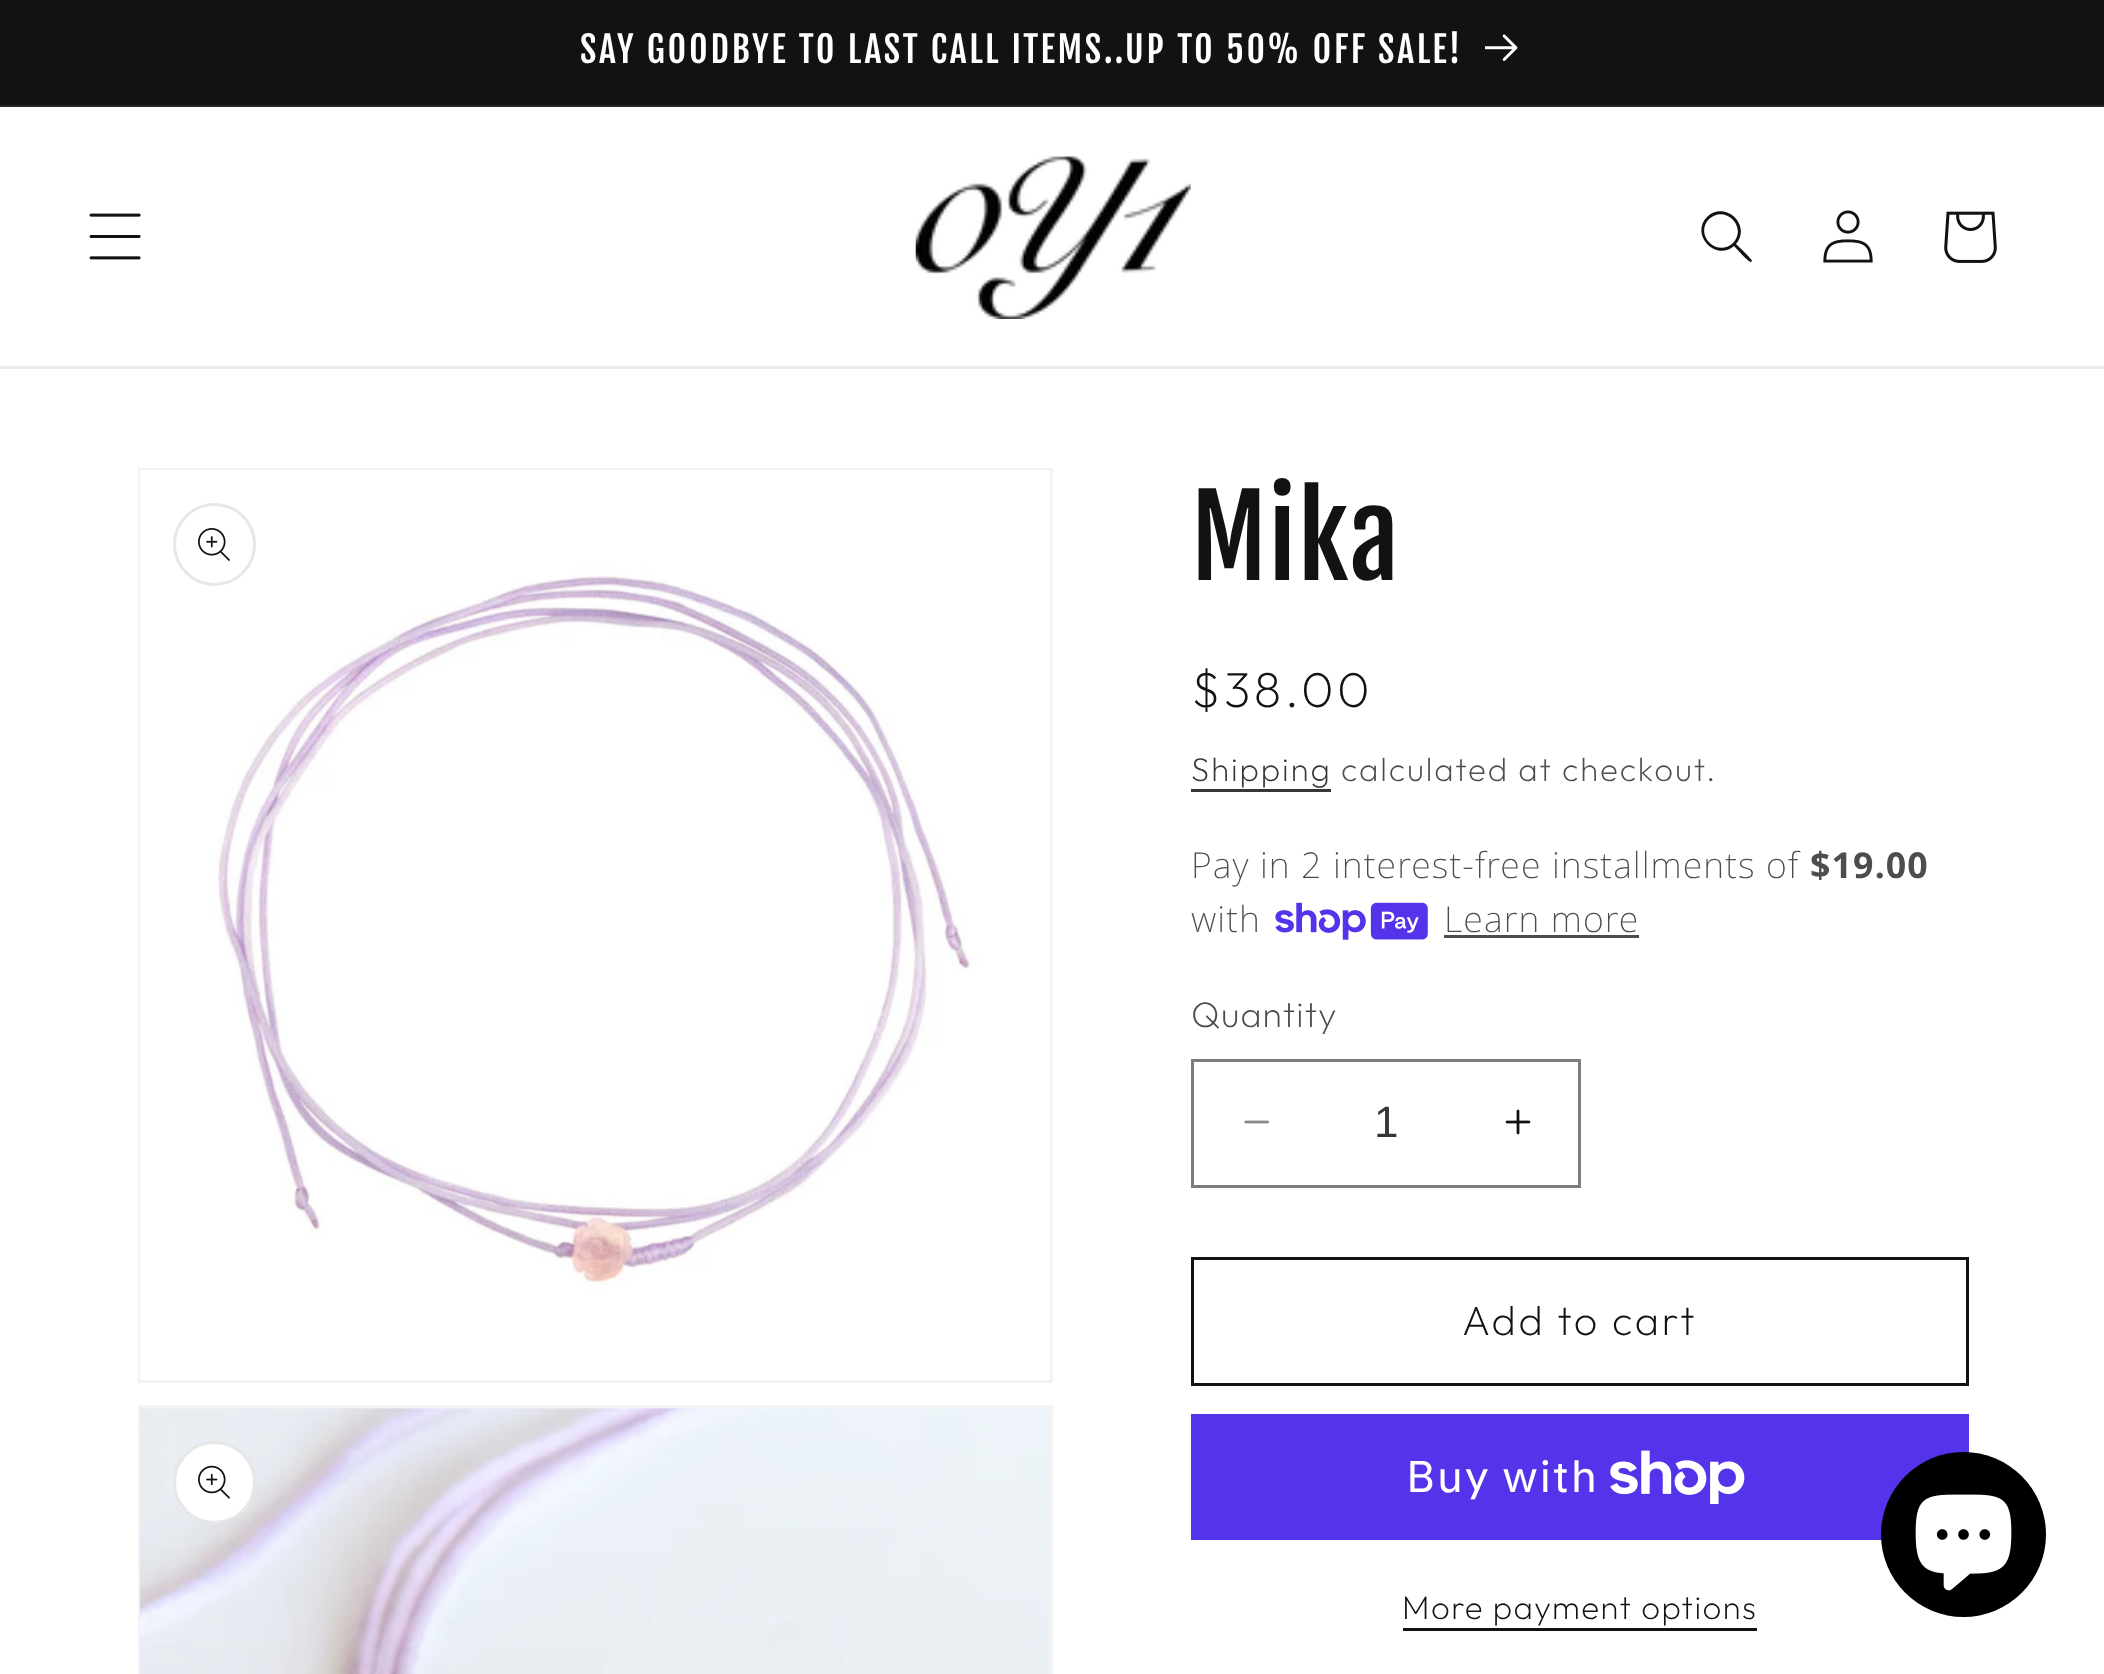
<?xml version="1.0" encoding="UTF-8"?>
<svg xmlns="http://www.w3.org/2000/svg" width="2104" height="1674">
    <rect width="100%" height="100%" fill="#FFFFFF"/>
    <rect x="0" y="0" width="2104" height="105" fill="#121212"/>
    <rect x="0" y="105" width="2104" height="2" fill="#252525"/>
    <text x="580" y="63" font-family="Fjalla One" font-size="35.75" letter-spacing="2.75" fill="#FFFFFF">SAY GOODBYE TO LAST CALL ITEMS..UP TO 50% OFF SALE!</text>
    <image x="1485" y="34" width="33" height="27" href="img_01.png"/>
    <rect x="0" y="366" width="2104" height="3" fill="#ECECEC"/>
    <image x="89" y="213" width="52" height="47" href="img_02.png"/>
    <image x="915" y="156" width="276" height="163" href="img_03.png"/>
    <path d="M 1733 243 C 1717 258 1694 235 1709 219 C 1725 204 1748 227 1733 243 Z M 1734 246 C 1715 262 1690 234 1707 217 C 1725 200 1752 225 1736 244 C 1738 246 1752 259 1752 261 L 1751 262 C 1749 263 1736 248 1734 246 Z" fill="#121212" fill-rule="evenodd"/>
    <image x="1823" y="210" width="50" height="53" href="img_04.png"/>
    <image x="1944" y="211" width="53" height="52" href="img_05.png"/>
    <rect x="139.5" y="469.5" width="912" height="912" fill="none" stroke="#F3F3F3" stroke-width="3"/>
    <image x="140" y="470" width="910" height="910" href="img_06.png"/>
    <circle cx="214.5" cy="544.5" r="40" fill="none" stroke="#E7E7E7" stroke-width="3"/>
    <image x="198" y="528" width="32" height="33" href="img_07.png"/>
    <rect x="139.5" y="1406.5" width="912" height="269" fill="none" stroke="#F3F3F3" stroke-width="3"/>
    <image x="140" y="1408" width="910" height="266" href="img_08.png"/>
    <circle cx="214.5" cy="1482.5" r="41.5" fill="#FFFFFF"/>
    <circle cx="214.5" cy="1482.5" r="40" fill="none" stroke="#121212" stroke-opacity="0.1" stroke-width="3"/>
    <image x="198" y="1465" width="32" height="34" href="img_09.png"/>
    <text x="1191" y="580" font-family="Fjalla One" font-size="110" letter-spacing="1.75" fill="#121212">Mika</text>
    <text x="1191" y="707" font-family="Outfit" font-size="49.5" font-weight="200" letter-spacing="3.5" fill="#121212">$38.00</text>
    <text x="1191" y="781" font-family="Outfit" font-size="33" font-weight="200" letter-spacing="1.9" fill="#363636">Shipping</text>
    <rect x="1191" y="789" width="140" height="3" fill="#363636"/>
    <text x="1341" y="781" font-family="Outfit" font-size="33" font-weight="200" letter-spacing="1.9" fill="#4D4D4D">calculated at checkout.</text>
    <text x="1191" y="878" font-family="Noto Sans" font-size="35.75" font-weight="200" letter-spacing="1.1" fill="#4D4D4D">Pay in 2 interest-free installments of</text>
    <text x="1810" y="878" font-family="Noto Sans" font-size="35.75" font-weight="700" letter-spacing="1.1" fill="#4D4D4D">$19.00</text>
    <text x="1191" y="932" font-family="Noto Sans" font-size="35.75" font-weight="200" letter-spacing="1.1" fill="#4D4D4D">with</text>
    <image x="1275" y="902" width="153" height="38" href="img_10.png"/>
    <text x="1444" y="932" font-family="Noto Sans" font-size="35.75" font-weight="200" letter-spacing="1.1" fill="#4D4D4D">Learn more</text>
    <rect x="1444" y="935" width="195" height="3" fill="#4D4D4D"/>
    <text x="1191" y="1027" font-family="Outfit" font-size="35.75" font-weight="200" letter-spacing="1.1" fill="#4D4D4D">Quantity</text>
    <image x="1244" y="1120" width="25" height="4" href="img_11.png"/>
    <image x="1505" y="1109" width="26" height="26" href="img_12.png"/>
    <rect x="1192.5" y="1060.5" width="387" height="126" fill="none" stroke="#7D7D7D" stroke-width="3"/>
    <text x="1374" y="1137" font-family="Liberation Sans" font-size="44" fill="#363636">1</text>
    <rect x="1192.5" y="1258.5" width="775" height="126" fill="none" stroke="#121212" stroke-width="3"/>
    <text x="1462" y="1335" font-family="Outfit" font-size="41.25" font-weight="200" letter-spacing="2.75" fill="#121212">Add to cart</text>
    <rect x="1191" y="1414" width="778" height="126" fill="#5433EB"/>
    <text x="1406" y="1492" font-family="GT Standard" font-size="44" letter-spacing="1.75" fill="#FFFFFF">Buy with</text>
    <image x="1610" y="1450" width="135" height="54" href="img_13.png"/>
    <text x="1402" y="1619" font-family="Outfit" font-size="33" font-weight="200" letter-spacing="1.4" fill="#121212">More payment options</text>
    <rect x="1403" y="1628" width="354" height="3" fill="#121212"/>
    <circle cx="1963.5" cy="1534.5" r="82.5" fill="#000000"/>
    <image x="1915" y="1494" width="97" height="97" href="img_14.png"/>
</svg>
